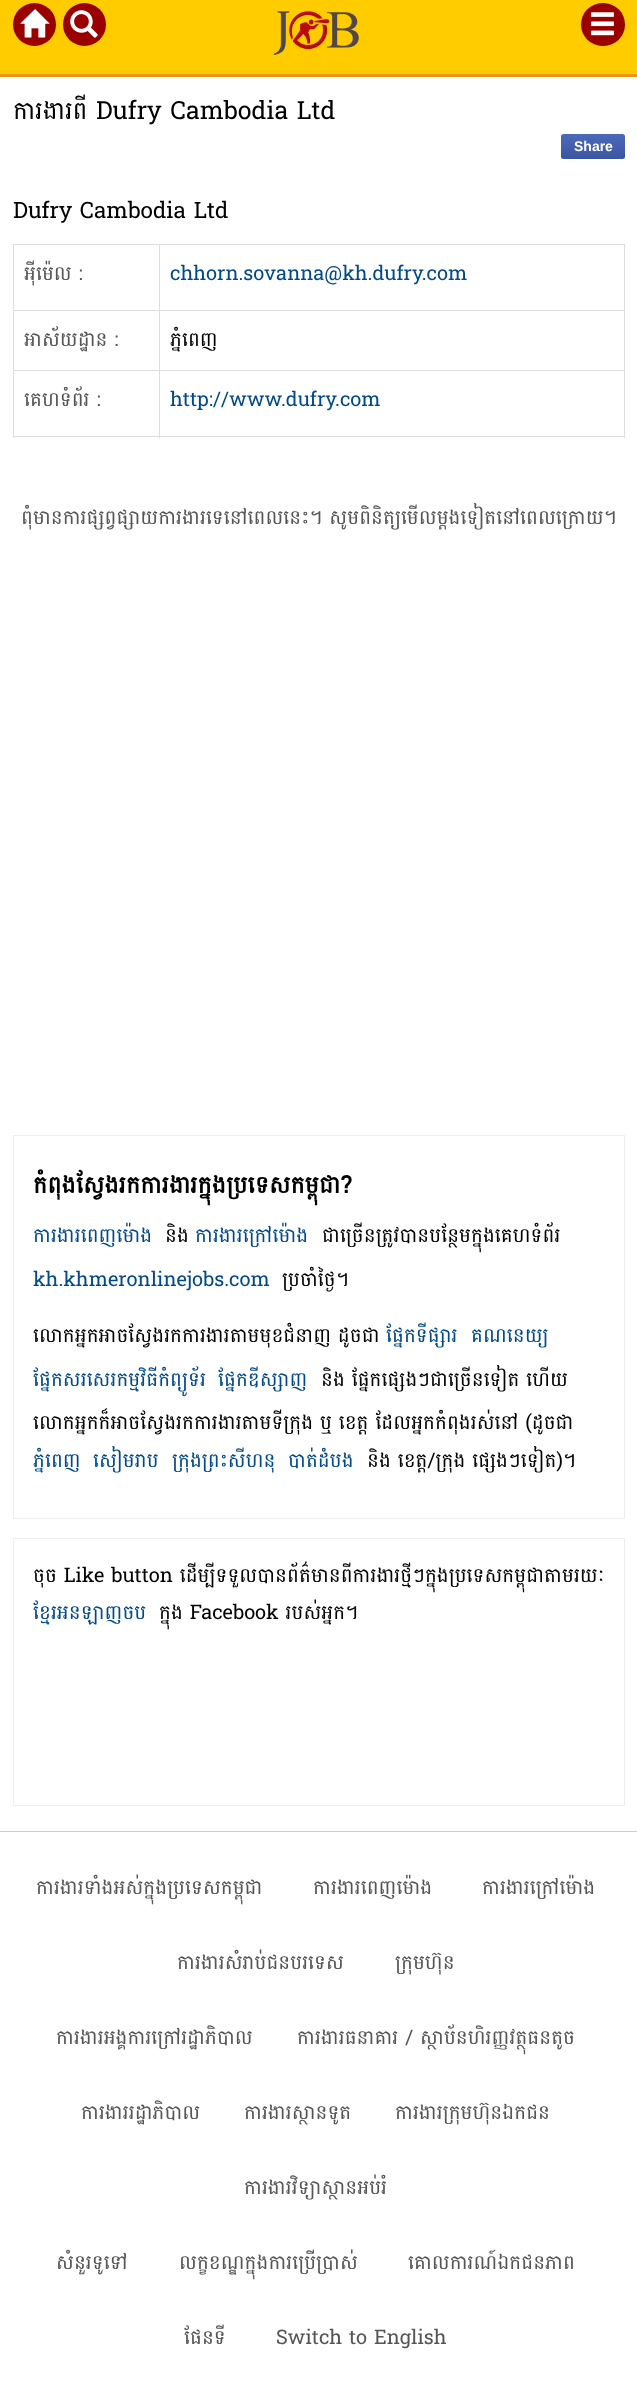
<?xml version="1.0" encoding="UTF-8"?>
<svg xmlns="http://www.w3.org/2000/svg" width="637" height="2389">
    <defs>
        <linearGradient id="g1" gradientUnits="userSpaceOnUse" x1="593" y1="134" x2="593" y2="159"><stop offset="0" stop-color="#4C69BA"/><stop offset="1" stop-color="#3B55A0"/></linearGradient>
    </defs>
    <rect width="100%" height="100%" fill="#FFFFFF"/>
    <rect x="0" y="0" width="637" height="74" fill="#FFCC00"/>
    <rect x="0" y="74" width="637" height="3" fill="#EB9316"/>
    <circle cx="34.5" cy="24.5" r="21.5" fill="#9A0000"/>
    <image x="20" y="9" width="30" height="29" href="img_01.png"/>
    <circle cx="84.5" cy="24.5" r="21.5" fill="#9A0000"/>
    <image x="70" y="10" width="28" height="28" href="img_02.png"/>
    <image x="273" y="11" width="86" height="44" href="img_03.png"/>
    <rect x="581" y="3" width="44" height="43" rx="21.5" fill="#9A0000"/>
    <image x="591" y="12" width="23" height="24" href="img_04.png"/>
    <text x="13" y="119" font-family="Battambang" font-size="25" fill="#000000">ការងារពី Dufry Cambodia Ltd</text>
    <rect x="561" y="134" width="64" height="25" rx="2.5" fill="url(#g1)"/>
    <text x="574" y="151" font-family="Liberation Sans" font-size="14" font-weight="700" fill="#FFFFFF">Share</text>
    <text x="13" y="218" font-family="Battambang" font-size="22.5" fill="#000000">Dufry Cambodia Ltd</text>
    <rect x="13" y="244" width="612" height="1" fill="#DDDDDD"/>
    <rect x="624" y="244" width="1" height="194" fill="#DDDDDD"/>
    <rect x="13" y="436" width="612" height="1" fill="#DDDDDD"/>
    <rect x="13" y="244" width="1" height="194" fill="#DDDDDD"/>
    <text x="24" y="280" font-family="Battambang" font-size="20" fill="#555555">អុីម៉េល :</text>
    <rect x="159" y="310" width="466" height="1" fill="#DDDDDD"/>
    <rect x="159" y="370" width="466" height="1" fill="#DDDDDD"/>
    <rect x="159" y="370" width="1" height="68" fill="#DDDDDD"/>
    <rect x="13" y="370" width="147" height="1" fill="#DDDDDD"/>
    <rect x="159" y="310" width="1" height="61" fill="#DDDDDD"/>
    <rect x="13" y="310" width="147" height="1" fill="#DDDDDD"/>
    <rect x="159" y="244" width="1" height="67" fill="#DDDDDD"/>
    <text x="170" y="280" font-family="Battambang" font-size="20" fill="#00498A">chhorn.sovanna@kh.dufry.com</text>
    <text x="24" y="346" font-family="Battambang" font-size="20" fill="#555555">អាស័យដ្ឋាន :</text>
    <text x="170" y="346" font-family="Battambang" font-size="20" fill="#000000">ភ្នំពេញ</text>
    <text x="24" y="406" font-family="Battambang" font-size="20" fill="#555555">គេហទំព័រ :</text>
    <text x="170" y="406" font-family="Battambang" font-size="20" fill="#00498A">http://www.dufry.com</text>
    <text x="21" y="524" font-family="Battambang" font-size="20" fill="#555555">ពុំមានការផ្សព្វផ្សាយការងារទេនៅពេលនេះ។ សូមពិនិត្យមើលម្តងទៀតនៅពេលក្រោយ។</text>
    <rect x="13.5" y="1135.5" width="611" height="383" fill="none" stroke="#EEEEEE"/>
    <text x="33" y="1193" font-family="Battambang" font-size="24" font-weight="700" fill="#000000">កំពុងស្វែងរកការងារក្នុងប្រទេសកម្ពុជា?</text>
    <text x="33" y="1242" font-family="Battambang" font-size="20" fill="#00498A">ការងារពេញម៉ោង</text>
    <text x="165" y="1242" font-family="Battambang" font-size="20" fill="#000000">និង</text>
    <text x="195" y="1242" font-family="Battambang" font-size="20" fill="#00498A">ការងារក្រៅម៉ោង</text>
    <text x="322" y="1242" font-family="Battambang" font-size="20" fill="#000000">ជាច្រើនត្រូវបានបន្ថែមក្នុងគេហទំព័រ</text>
    <text x="33" y="1286" font-family="Battambang" font-size="20" fill="#00498A">kh.khmeronlinejobs.com</text>
    <text x="282" y="1286" font-family="Battambang" font-size="20" fill="#000000">ប្រចាំថ្ងៃ។</text>
    <text x="33" y="1342" font-family="Battambang" font-size="20" fill="#000000">លោកអ្នកអាចស្វែងរកការងារតាមមុខជំនាញ ដូចជា</text>
    <text x="386" y="1342" font-family="Battambang" font-size="20" fill="#00498A">ផ្នែកទីផ្សារ</text>
    <text x="471" y="1342" font-family="Battambang" font-size="20" fill="#00498A">គណនេយ្យ</text>
    <text x="33" y="1386" font-family="Battambang" font-size="20" fill="#00498A">ផ្នែកសរសេរកម្មវិធីកំព្យូទ័រ</text>
    <text x="218" y="1386" font-family="Battambang" font-size="20" fill="#00498A">ផ្នែកឌីស្សាញ</text>
    <text x="321" y="1386" font-family="Battambang" font-size="20" fill="#000000">និង ផ្នែកផ្សេងៗជាច្រើនទៀត ហើយ</text>
    <text x="33" y="1429" font-family="Battambang" font-size="20" fill="#000000">លោកអ្នកក៏អាចស្វែងរកការងារតាមទីក្រុង ឬ ខេត្ត ដែលអ្នកកំពុងរស់នៅ (ដូចជា</text>
    <text x="33" y="1467" font-family="Battambang" font-size="20" fill="#00498A">ភ្នំពេញ</text>
    <text x="93" y="1467" font-family="Battambang" font-size="20" fill="#00498A">សៀមរាប</text>
    <text x="172" y="1467" font-family="Battambang" font-size="20" fill="#00498A">ក្រុងព្រះសីហនុ</text>
    <text x="288" y="1467" font-family="Battambang" font-size="20" fill="#00498A">បាត់ដំបង</text>
    <text x="367" y="1467" font-family="Battambang" font-size="20" fill="#000000">និង ខេត្ត/ក្រុង ផ្សេងៗទៀត)។</text>
    <rect x="13.5" y="1538.5" width="611" height="267" fill="none" stroke="#EEEEEE"/>
    <text x="33" y="1582" font-family="Battambang" font-size="20" fill="#000000">ចុច Like button ដើម្បីទទួលបានព័ត៌មានពីការងារថ្មីៗក្នុងប្រទេសកម្ពុជាតាមរយៈ</text>
    <text x="33" y="1619" font-family="Battambang" font-size="20" fill="#00498A">ខ្មែរអនឡាញចប</text>
    <text x="159" y="1619" font-family="Battambang" font-size="20" fill="#000000">ក្នុង Facebook របស់អ្នក។</text>
    <rect x="0" y="1831" width="637" height="1" fill="#CCCCCC"/>
    <text x="36" y="1894" font-family="Battambang" font-size="20" fill="#555555">ការងារទាំងអស់ក្នុងប្រទេសកម្ពុជា</text>
    <text x="313" y="1894" font-family="Battambang" font-size="20" fill="#555555">ការងារពេញម៉ោង</text>
    <text x="482" y="1894" font-family="Battambang" font-size="20" fill="#555555">ការងារក្រៅម៉ោង</text>
    <text x="177" y="1969" font-family="Battambang" font-size="20" fill="#555555">ការងារសំរាប់ជនបរទេស</text>
    <text x="395" y="1969" font-family="Battambang" font-size="20" fill="#555555">ក្រុមហ៊ុន</text>
    <text x="56" y="2044" font-family="Battambang" font-size="20" fill="#555555">ការងារអង្គការក្រៅរដ្ឋាភិបាល</text>
    <text x="297" y="2044" font-family="Battambang" font-size="20" fill="#555555">ការងារធនាគារ / ស្ថាប័នហិរញ្ញវត្ថុធនតូច</text>
    <text x="81" y="2119" font-family="Battambang" font-size="20" fill="#555555">ការងាររដ្ឋាភិបាល</text>
    <text x="244" y="2119" font-family="Battambang" font-size="20" fill="#555555">ការងារស្ថានទូត</text>
    <text x="395" y="2119" font-family="Battambang" font-size="20" fill="#555555">ការងារក្រុមហ៊ុនឯកជន</text>
    <text x="244" y="2194" font-family="Battambang" font-size="20" fill="#555555">ការងារវិទ្យាស្ថានអប់រំ</text>
    <text x="56" y="2269" font-family="Battambang" font-size="20" fill="#555555">សំនួរទូទៅ</text>
    <text x="179" y="2269" font-family="Battambang" font-size="20" fill="#555555">លក្ខខណ្ឌក្នុងការប្រើប្រាស់</text>
    <text x="408" y="2269" font-family="Battambang" font-size="20" fill="#555555">គោលការណ៍ឯកជនភាព</text>
    <text x="184" y="2344" font-family="Battambang" font-size="20" fill="#555555">ផែនទី</text>
    <text x="276" y="2344" font-family="Battambang" font-size="20" fill="#555555">Switch to English</text>
</svg>
